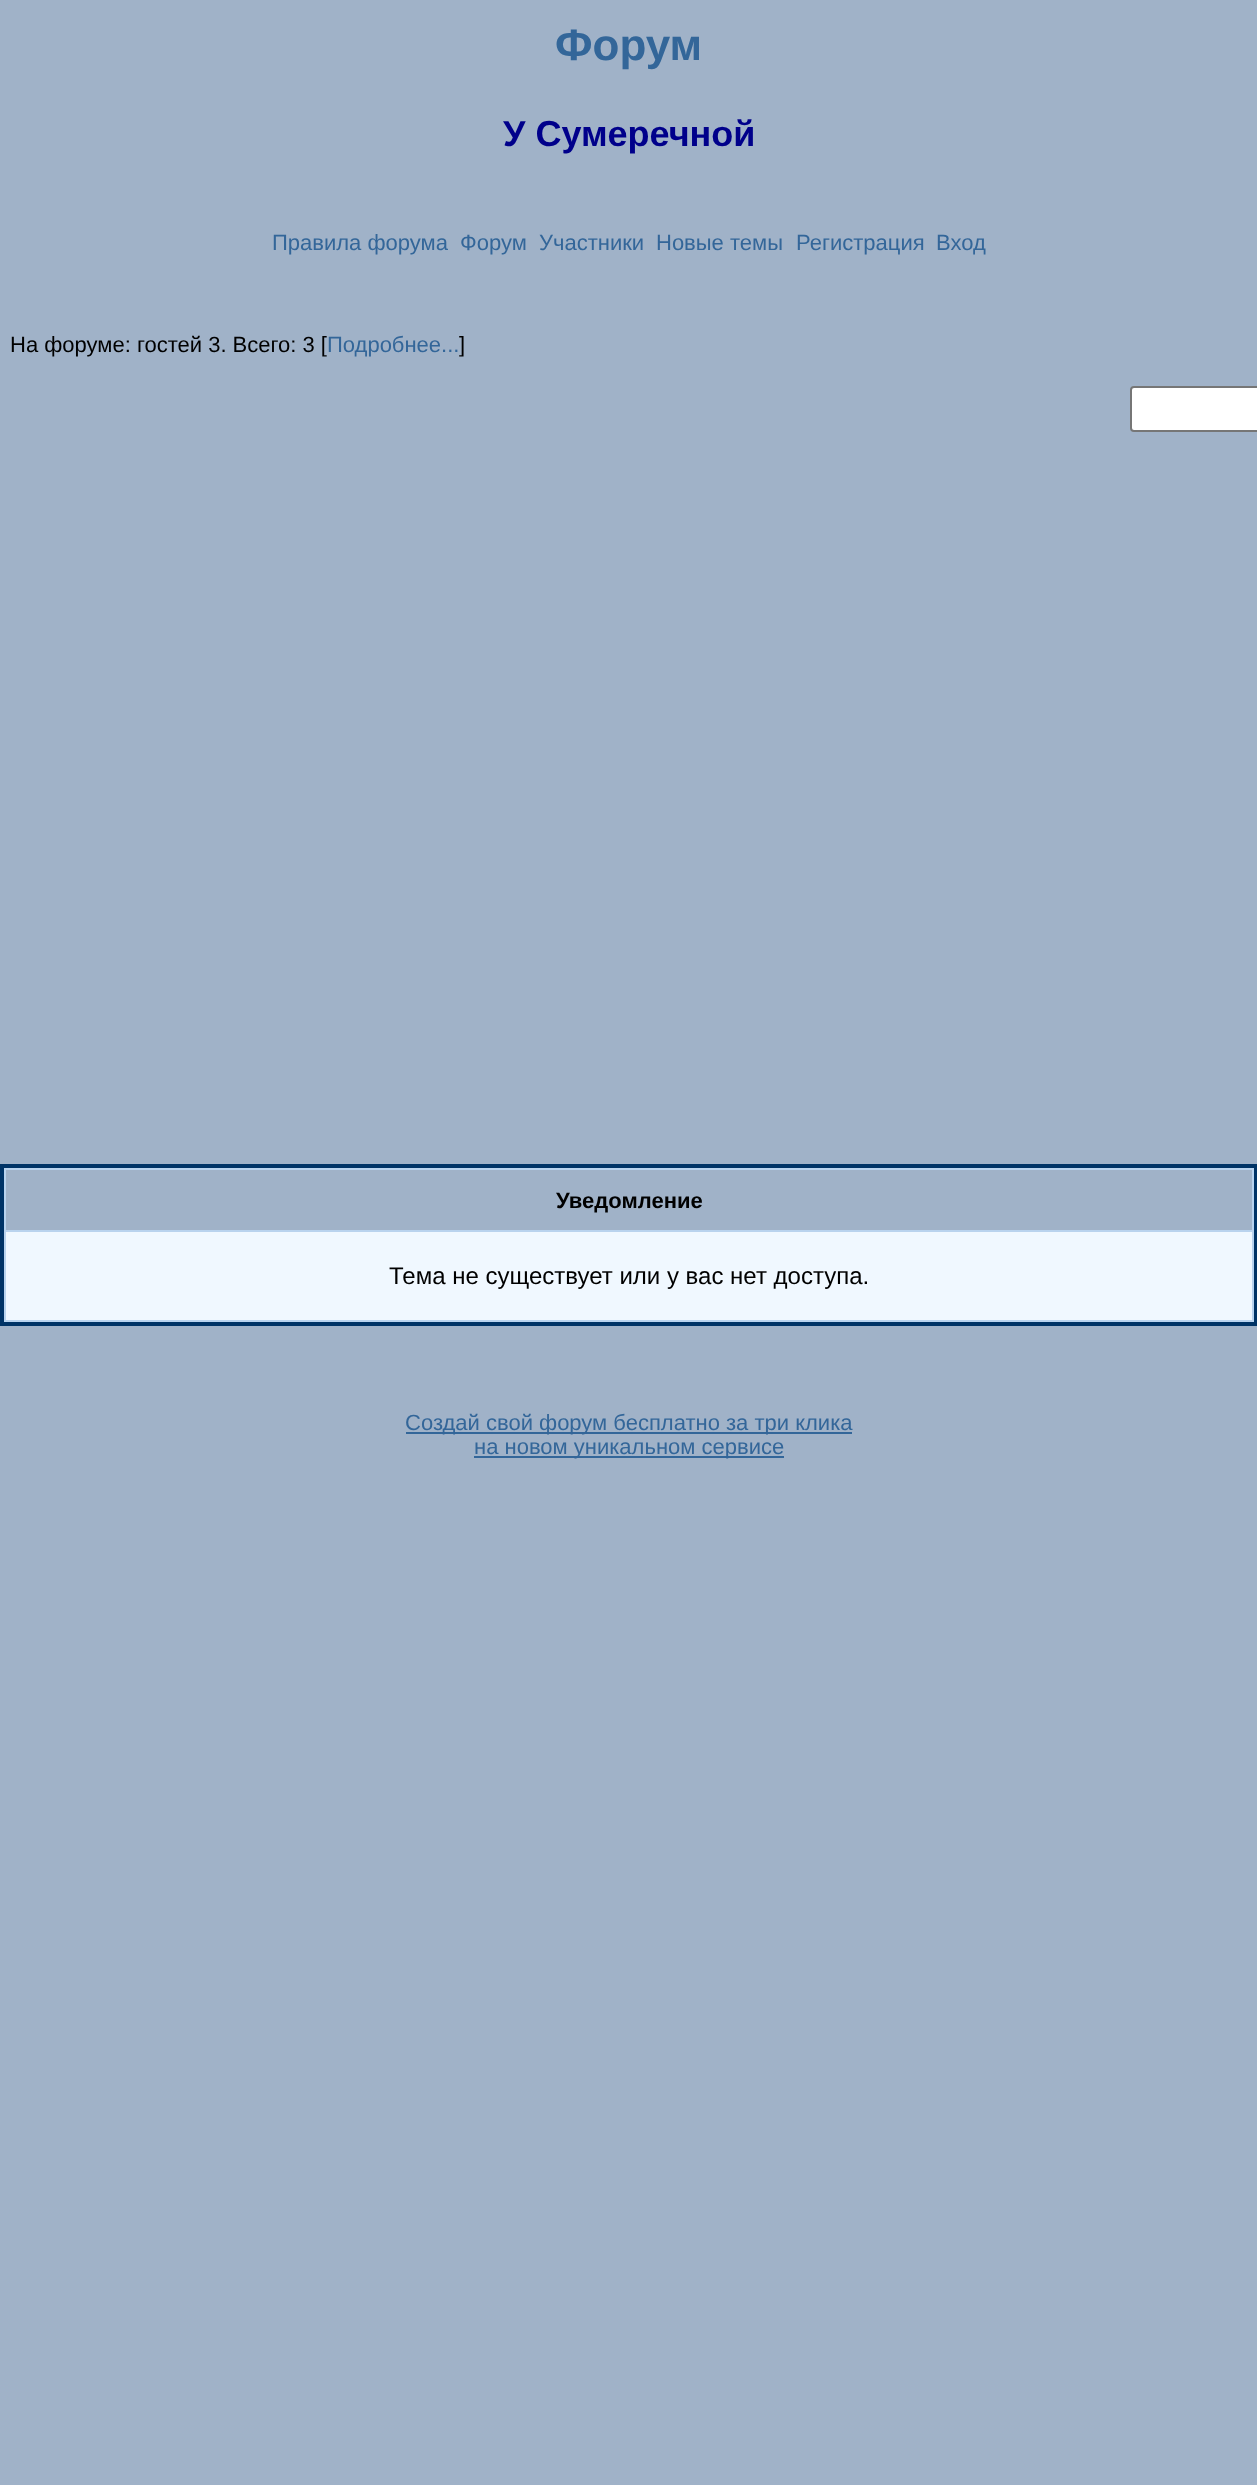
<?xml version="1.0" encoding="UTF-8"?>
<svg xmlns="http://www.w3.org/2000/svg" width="1257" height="2485">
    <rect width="100%" height="100%" fill="#A0B2C8"/>
    <text x="555" y="60" font-family="Liberation Sans" font-size="44" font-weight="700" fill="#336699">Форум</text>
    <text x="503" y="146" font-family="Liberation Sans" font-size="36" font-weight="700" fill="#00008B">У Сумеречной</text>
    <text x="272" y="250" font-family="Liberation Sans" font-size="22" fill="#336699">Правила форума</text>
    <text x="460" y="250" font-family="Liberation Sans" font-size="22" fill="#336699">Форум</text>
    <text x="539" y="250" font-family="Liberation Sans" font-size="22" fill="#336699">Участники</text>
    <text x="656" y="250" font-family="Liberation Sans" font-size="22" fill="#336699">Новые темы</text>
    <text x="796" y="250" font-family="Liberation Sans" font-size="22" fill="#336699">Регистрация</text>
    <text x="936" y="250" font-family="Liberation Sans" font-size="22" fill="#336699">Вход</text>
    <text x="10" y="352" font-family="Liberation Sans" font-size="22" fill="#000000">На форуме: гостей 3. Всего: 3 [</text>
    <text x="327" y="352" font-family="Liberation Sans" font-size="22" fill="#336699">Подробнее...</text>
    <text x="459" y="352" font-family="Liberation Sans" font-size="22" fill="#000000">]</text>
    <rect x="1131" y="387" width="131" height="44" rx="3" fill="#FFFFFF" stroke="#767676" stroke-width="2"/>
    <rect x="0" y="1164" width="1257" height="162" fill="#003366"/>
    <rect x="4" y="1168" width="1250" height="154" fill="#B9D3EE"/>
    <rect x="6" y="1170" width="1246" height="60" fill="#A0B2C8"/>
    <text x="556" y="1208" font-family="Liberation Sans" font-size="22" font-weight="700" fill="#000000">Уведомление</text>
    <rect x="6" y="1232" width="1246" height="88" fill="#F0F8FF"/>
    <text x="389" y="1284" font-family="Liberation Sans" font-size="24" fill="#000000">Тема не существует или у вас нет доступа.</text>
    <rect x="406" y="1432" width="446" height="2" fill="#336699"/>
    <text x="405" y="1430" font-family="Liberation Sans" font-size="22" fill="#336699">Создай свой форум бесплатно за три клика</text>
    <rect x="474" y="1456" width="310" height="2" fill="#336699"/>
    <text x="474" y="1454" font-family="Liberation Sans" font-size="22" fill="#336699">на новом уникальном сервисе</text>
</svg>
